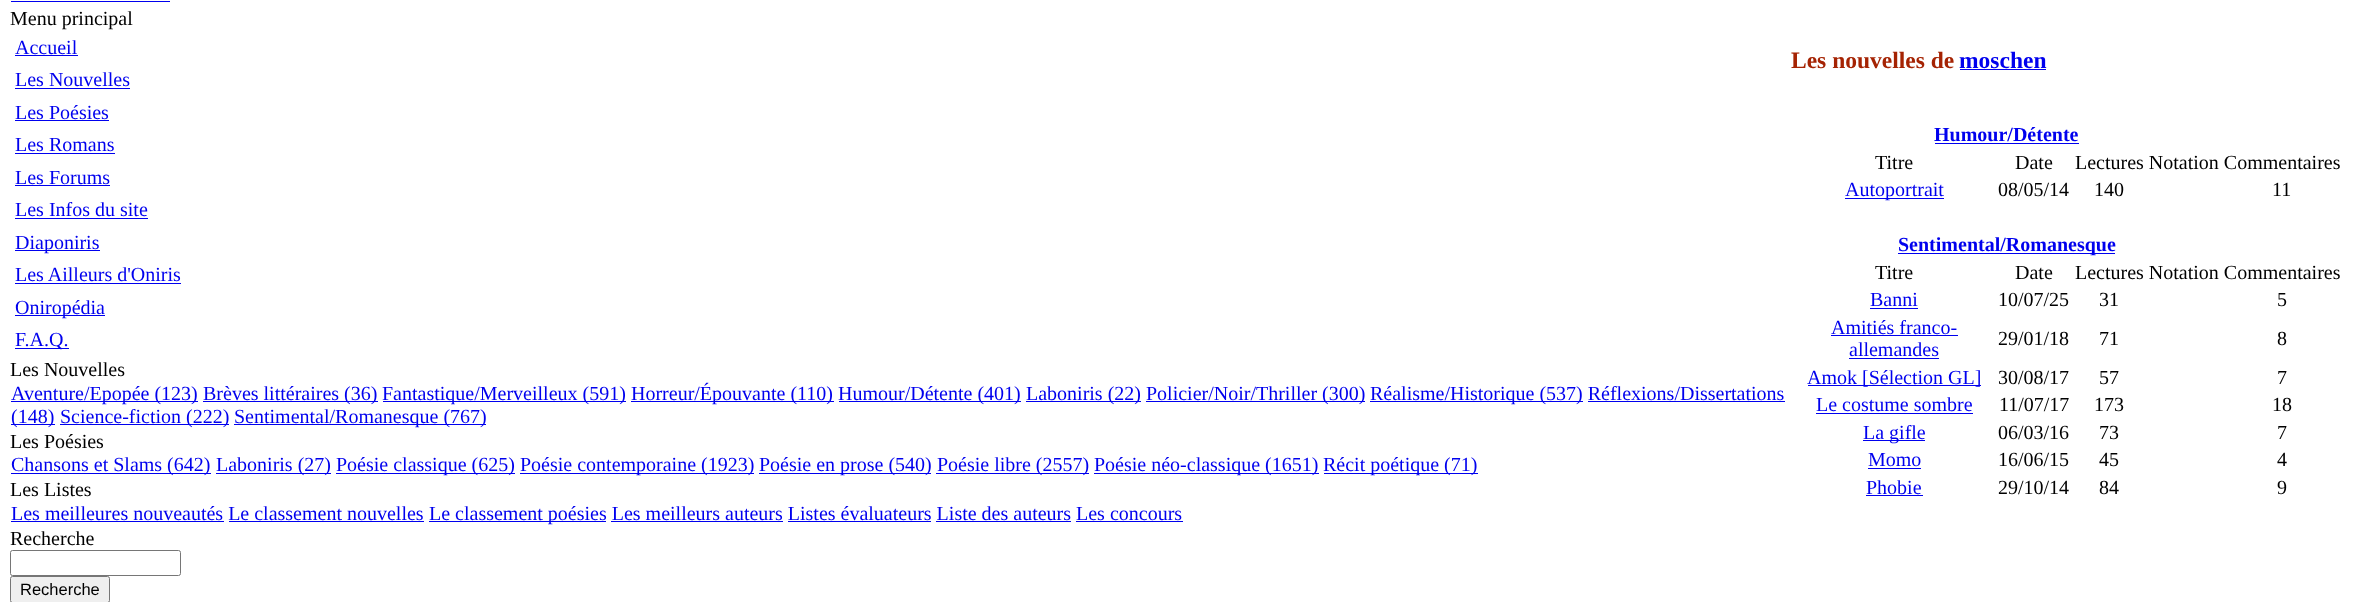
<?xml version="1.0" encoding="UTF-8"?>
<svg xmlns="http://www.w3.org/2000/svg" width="2353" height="602">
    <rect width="100%" height="100%" fill="#FFFFFF"/>
    <rect x="11" y="1" width="159" height="1" fill="#0000EE"/>
    <text x="10" y="25" font-family="Liberation Serif" font-size="20" fill="#000000">Menu principal</text>
    <text x="15" y="54" font-family="Liberation Serif" font-size="20" fill="#0000EE">Accueil</text>
    <rect x="15" y="55" width="63" height="1" fill="#0000EE"/>
    <text x="15" y="86" font-family="Liberation Serif" font-size="20" fill="#0000EE">Les Nouvelles</text>
    <rect x="15" y="88" width="115" height="1" fill="#0000EE"/>
    <text x="15" y="119" font-family="Liberation Serif" font-size="20" fill="#0000EE">Les Poésies</text>
    <rect x="15" y="120" width="94" height="1" fill="#0000EE"/>
    <text x="15" y="151" font-family="Liberation Serif" font-size="20" fill="#0000EE">Les Romans</text>
    <rect x="15" y="153" width="100" height="1" fill="#0000EE"/>
    <text x="15" y="184" font-family="Liberation Serif" font-size="20" fill="#0000EE">Les Forums</text>
    <rect x="15" y="185" width="95" height="1" fill="#0000EE"/>
    <text x="15" y="216" font-family="Liberation Serif" font-size="20" fill="#0000EE">Les Infos du site</text>
    <rect x="15" y="218" width="133" height="1" fill="#0000EE"/>
    <rect x="15" y="250" width="85" height="1" fill="#0000EE"/>
    <text font-family="Liberation Serif" font-size="20" fill="#0000EE">
        <tspan x="15" y="249">Diaponiris</tspan>
        <tspan x="15" y="281">Les Ailleurs d'Oniris</tspan>
    </text>
    <rect x="15" y="283" width="166" height="1" fill="#0000EE"/>
    <rect x="15" y="315" width="90" height="1" fill="#0000EE"/>
    <text x="15" y="314" font-family="Liberation Serif" font-size="20" fill="#0000EE">Oniropédia</text>
    <rect x="15" y="348" width="54" height="1" fill="#0000EE"/>
    <text x="15" y="346" font-family="Liberation Serif" font-size="20" fill="#0000EE">F.A.Q.</text>
    <text x="10" y="376" font-family="Liberation Serif" font-size="20" fill="#000000">Les Nouvelles</text>
    <rect x="11" y="401" width="187" height="1" fill="#0000EE"/>
    <text x="11" y="400" font-family="Liberation Serif" font-size="20" fill="#0000EE">Aventure/Epopée (123)</text>
    <rect x="203" y="401" width="175" height="1" fill="#0000EE"/>
    <text x="203" y="400" font-family="Liberation Serif" font-size="20" fill="#0000EE">Brèves littéraires (36)</text>
    <rect x="383" y="401" width="243" height="1" fill="#0000EE"/>
    <text x="382" y="400" font-family="Liberation Serif" font-size="20" fill="#0000EE">Fantastique/Merveilleux (591)</text>
    <rect x="631" y="401" width="203" height="1" fill="#0000EE"/>
    <text x="631" y="400" font-family="Liberation Serif" font-size="20" fill="#0000EE">Horreur/Épouvante (110)</text>
    <rect x="839" y="401" width="182" height="1" fill="#0000EE"/>
    <text x="838" y="400" font-family="Liberation Serif" font-size="20" fill="#0000EE">Humour/Détente (401)</text>
    <rect x="1026" y="401" width="115" height="1" fill="#0000EE"/>
    <text x="1026" y="400" font-family="Liberation Serif" font-size="20" fill="#0000EE">Laboniris (22)</text>
    <rect x="1146" y="401" width="219" height="1" fill="#0000EE"/>
    <text x="1146" y="400" font-family="Liberation Serif" font-size="20" fill="#0000EE">Policier/Noir/Thriller (300)</text>
    <rect x="1370" y="401" width="213" height="1" fill="#0000EE"/>
    <text x="1370" y="400" font-family="Liberation Serif" font-size="20" fill="#0000EE">Réalisme/Historique (537) Réflexions/Dissertations</text>
    <rect x="11" y="424" width="44" height="1" fill="#0000EE"/>
    <text x="11" y="423" font-family="Liberation Serif" font-size="20" fill="#0000EE">(148)</text>
    <rect x="1588" y="401" width="197" height="1" fill="#0000EE"/>
    <rect x="60" y="424" width="169" height="1" fill="#0000EE"/>
    <text x="60" y="423" font-family="Liberation Serif" font-size="20" fill="#0000EE">Science-fiction (222)</text>
    <rect x="234" y="424" width="252" height="1" fill="#0000EE"/>
    <text x="234" y="423" font-family="Liberation Serif" font-size="20" fill="#0000EE">Sentimental/Romanesque (767)</text>
    <text x="10" y="448" font-family="Liberation Serif" font-size="20" fill="#000000">Les Poésies</text>
    <rect x="11" y="473" width="200" height="1" fill="#0000EE"/>
    <text x="11" y="471" font-family="Liberation Serif" font-size="20" fill="#0000EE">Chansons et Slams (642)</text>
    <rect x="216" y="473" width="115" height="1" fill="#0000EE"/>
    <text x="216" y="471" font-family="Liberation Serif" font-size="20" fill="#0000EE">Laboniris (27)</text>
    <rect x="336" y="473" width="179" height="1" fill="#0000EE"/>
    <text x="336" y="471" font-family="Liberation Serif" font-size="20" fill="#0000EE">Poésie classique (625)</text>
    <rect x="520" y="473" width="234" height="1" fill="#0000EE"/>
    <text x="520" y="471" font-family="Liberation Serif" font-size="20" fill="#0000EE">Poésie contemporaine (1923)</text>
    <rect x="759" y="473" width="172" height="1" fill="#0000EE"/>
    <text x="759" y="471" font-family="Liberation Serif" font-size="20" fill="#0000EE">Poésie en prose (540)</text>
    <rect x="936" y="473" width="153" height="1" fill="#0000EE"/>
    <text x="937" y="471" font-family="Liberation Serif" font-size="20" fill="#0000EE">Poésie libre (2557)</text>
    <rect x="1094" y="473" width="225" height="1" fill="#0000EE"/>
    <text x="1094" y="471" font-family="Liberation Serif" font-size="20" fill="#0000EE">Poésie néo-classique (1651)</text>
    <rect x="1324" y="473" width="154" height="1" fill="#0000EE"/>
    <text x="1323" y="471" font-family="Liberation Serif" font-size="20" fill="#0000EE">Récit poétique (71)</text>
    <text x="10" y="496" font-family="Liberation Serif" font-size="20" fill="#000000">Les Listes</text>
    <text x="11" y="520" font-family="Liberation Serif" font-size="20" fill="#0000EE">Les meilleures nouveautés Le classement nouvelles</text>
    <rect x="11" y="521" width="213" height="1" fill="#0000EE"/>
    <rect x="429" y="521" width="177" height="1" fill="#0000EE"/>
    <text x="429" y="520" font-family="Liberation Serif" font-size="20" fill="#0000EE">Le classement poésies Les meilleurs auteurs Listes évaluateurs Liste des auteurs Les concours</text>
    <rect x="229" y="521" width="195" height="1" fill="#0000EE"/>
    <rect x="611" y="521" width="172" height="1" fill="#0000EE"/>
    <rect x="788" y="521" width="143" height="1" fill="#0000EE"/>
    <rect x="936" y="521" width="135" height="1" fill="#0000EE"/>
    <rect x="1076" y="521" width="107" height="1" fill="#0000EE"/>
    <text x="10" y="545" font-family="Liberation Serif" font-size="20" fill="#000000">Recherche</text>
    <rect x="10.5" y="550.5" width="170" height="25" rx="2" fill="none" stroke="#767676"/>
    <rect x="10.5" y="576.5" width="99" height="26" rx="2" fill="#EFEFEF" stroke="#767676"/>
    <text x="20" y="595" font-family="Liberation Sans" font-size="16.5" fill="#000000">Recherche</text>
    <text x="1791" y="68" font-family="Liberation Serif" font-size="23.5" font-weight="700" fill="#A52303">Les nouvelles de</text>
    <text x="1959" y="68" font-family="Liberation Serif" font-size="23.5" font-weight="700" fill="#0000EE">moschen</text>
    <rect x="1960" y="69" width="86" height="1" fill="#0000EE"/>
    <text x="1934" y="141" font-family="Liberation Serif" font-size="20" font-weight="700" fill="#0000EE">Humour/Détente</text>
    <rect x="1935" y="143" width="144" height="1" fill="#0000EE"/>
    <text x="1875" y="169" font-family="Liberation Serif" font-size="20" fill="#000000">Titre</text>
    <text x="2015" y="169" font-family="Liberation Serif" font-size="20" fill="#000000">Date</text>
    <text x="2075" y="169" font-family="Liberation Serif" font-size="20" fill="#000000">Lectures Notation Commentaires</text>
    <rect x="1845" y="198" width="99" height="1" fill="#0000EE"/>
    <text x="1845" y="196" font-family="Liberation Serif" font-size="20" fill="#0000EE">Autoportrait</text>
    <text x="1998" y="196" font-family="Liberation Serif" font-size="20" fill="#000000">08/05/14</text>
    <text x="2094" y="196" font-family="Liberation Serif" font-size="20" fill="#000000">140</text>
    <text x="2272" y="196" font-family="Liberation Serif" font-size="20" fill="#000000">11</text>
    <rect x="1898" y="253" width="217" height="1" fill="#0000EE"/>
    <text x="1898" y="251" font-family="Liberation Serif" font-size="20" font-weight="700" fill="#0000EE">Sentimental/Romanesque</text>
    <text x="1875" y="279" font-family="Liberation Serif" font-size="20" fill="#000000">Titre</text>
    <text x="2015" y="279" font-family="Liberation Serif" font-size="20" fill="#000000">Date</text>
    <text x="2075" y="279" font-family="Liberation Serif" font-size="20" fill="#000000">Lectures Notation Commentaires</text>
    <text x="1870" y="306" font-family="Liberation Serif" font-size="20" fill="#0000EE">Banni</text>
    <rect x="1870" y="308" width="48" height="1" fill="#0000EE"/>
    <text x="1998" y="306" font-family="Liberation Serif" font-size="20" fill="#000000">10/07/25</text>
    <text x="2099" y="306" font-family="Liberation Serif" font-size="20" fill="#000000">31</text>
    <text x="2277" y="306" font-family="Liberation Serif" font-size="20" fill="#000000">5</text>
    <text x="1831" y="334" font-family="Liberation Serif" font-size="20" fill="#0000EE">Amitiés franco-</text>
    <rect x="1831" y="335" width="127" height="1" fill="#0000EE"/>
    <text x="1849" y="356" font-family="Liberation Serif" font-size="20" fill="#0000EE">allemandes</text>
    <rect x="1849" y="358" width="90" height="1" fill="#0000EE"/>
    <text x="1998" y="345" font-family="Liberation Serif" font-size="20" fill="#000000">29/01/18</text>
    <text x="2099" y="345" font-family="Liberation Serif" font-size="20" fill="#000000">71</text>
    <text x="2277" y="345" font-family="Liberation Serif" font-size="20" fill="#000000">8</text>
    <rect x="1808" y="385" width="173" height="1" fill="#0000EE"/>
    <text x="1807" y="384" font-family="Liberation Serif" font-size="20" fill="#0000EE">Amok [Sélection GL]</text>
    <text x="1998" y="384" font-family="Liberation Serif" font-size="20" fill="#000000">30/08/17</text>
    <text x="2099" y="384" font-family="Liberation Serif" font-size="20" fill="#000000">57</text>
    <text x="2277" y="384" font-family="Liberation Serif" font-size="20" fill="#000000">7</text>
    <text x="1816" y="411" font-family="Liberation Serif" font-size="20" fill="#0000EE">Le costume sombre</text>
    <rect x="1816" y="413" width="157" height="1" fill="#0000EE"/>
    <text x="1999" y="411" font-family="Liberation Serif" font-size="20" fill="#000000">11/07/17</text>
    <text x="2094" y="411" font-family="Liberation Serif" font-size="20" fill="#000000">173</text>
    <text x="2272" y="411" font-family="Liberation Serif" font-size="20" fill="#000000">18</text>
    <rect x="1863" y="440" width="62" height="1" fill="#0000EE"/>
    <text x="1863" y="439" font-family="Liberation Serif" font-size="20" fill="#0000EE">La gifle</text>
    <text x="1998" y="439" font-family="Liberation Serif" font-size="20" fill="#000000">06/03/16</text>
    <text x="2099" y="439" font-family="Liberation Serif" font-size="20" fill="#000000">73</text>
    <text x="2277" y="439" font-family="Liberation Serif" font-size="20" fill="#000000">7</text>
    <text x="1868" y="466" font-family="Liberation Serif" font-size="20" fill="#0000EE">Momo</text>
    <rect x="1868" y="468" width="53" height="1" fill="#0000EE"/>
    <text x="1998" y="466" font-family="Liberation Serif" font-size="20" fill="#000000">16/06/15</text>
    <text x="2099" y="466" font-family="Liberation Serif" font-size="20" fill="#000000">45</text>
    <text x="2277" y="466" font-family="Liberation Serif" font-size="20" fill="#000000">4</text>
    <text x="1866" y="494" font-family="Liberation Serif" font-size="20" fill="#0000EE">Phobie</text>
    <rect x="1866" y="495" width="57" height="1" fill="#0000EE"/>
    <text x="1998" y="494" font-family="Liberation Serif" font-size="20" fill="#000000">29/10/14</text>
    <text x="2099" y="494" font-family="Liberation Serif" font-size="20" fill="#000000">84</text>
    <text x="2277" y="494" font-family="Liberation Serif" font-size="20" fill="#000000">9</text>
</svg>
